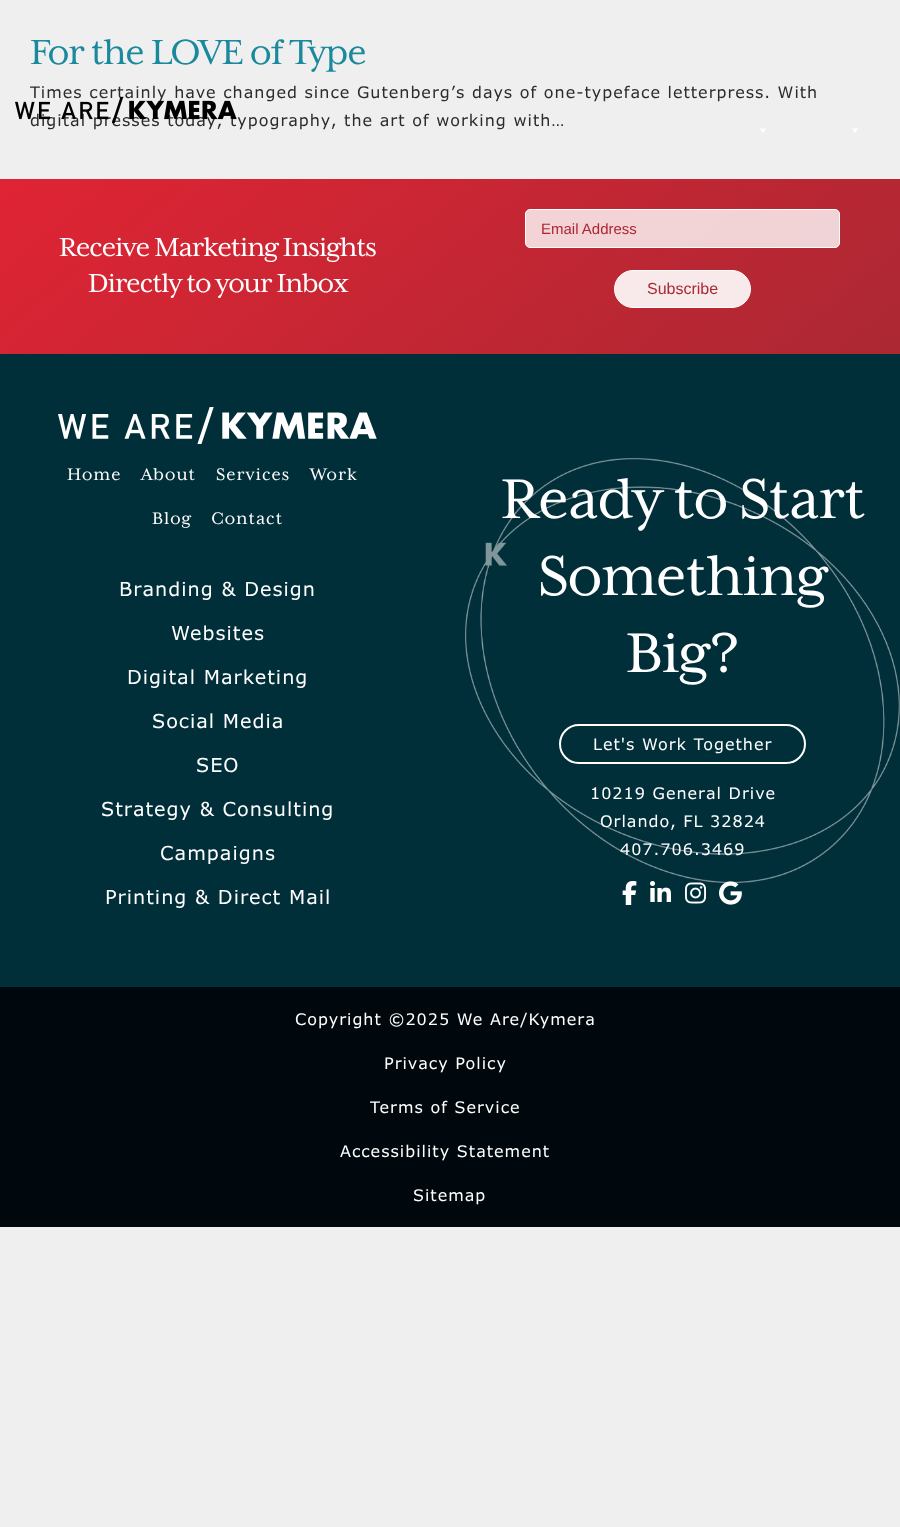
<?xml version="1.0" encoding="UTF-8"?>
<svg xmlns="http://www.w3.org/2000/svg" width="900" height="1527">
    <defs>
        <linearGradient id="g1" gradientUnits="userSpaceOnUse" x1="229" y1="-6.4" x2="671" y2="539"><stop offset="0" stop-color="#E02434"/><stop offset="1" stop-color="#AB2833"/></linearGradient>
    </defs>
    <rect width="100%" height="100%" fill="#EFEFEF"/>
    <text x="30" y="64" font-family="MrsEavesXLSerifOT" font-size="40" letter-spacing="-1" fill="#1A899D">For the LOVE of Type</text>
    <text font-family="Verdana" font-size="16" letter-spacing="1" fill="#2B2B2B">
        <tspan x="30" y="98">Times certainly have changed since Gutenberg’s days of one-typeface letterpress. With</tspan>
        <tspan x="30" y="126">digital presses today, typography, the art of working with…</tspan>
    </text>
    <rect x="0" y="179" width="900" height="175" fill="url(#g1)"/>
    <text x="59" y="256" font-family="MrsEavesXLSerifOT" font-size="30" letter-spacing="-1" fill="#FFFFFF">Receive Marketing Insights</text>
    <text x="88" y="292" font-family="MrsEavesXLSerifOT" font-size="30" letter-spacing="-1" fill="#FFFFFF">Directly to your Inbox</text>
    <rect x="525.5" y="209.5" width="314" height="38" rx="4.5" fill="#FFFFFF" fill-opacity="0.8" stroke="#FFFFFF"/>
    <text x="541" y="234" font-family="Liberation Sans" font-size="15" fill="#AB2833">Email Address</text>
    <rect x="614.5" y="270.5" width="136" height="37" rx="18.5" fill="#FFFFFF" fill-opacity="0.9" stroke="#FFFFFF"/>
    <text x="647" y="294" font-family="Liberation Sans" font-size="16" fill="#AB2833">Subscribe</text>
    <rect x="0" y="354" width="900" height="633" fill="#002E39"/>
    <image x="58" y="407" width="319" height="37" href="img_01.png"/>
    <text x="67" y="480" font-family="MrsEavesXLSerifOT" font-size="19.25" letter-spacing="1" fill="#FFFFFF">Home</text>
    <text x="141" y="480" font-family="MrsEavesXLSerifOT" font-size="19.25" letter-spacing="1" fill="#FFFFFF">About</text>
    <text x="216" y="480" font-family="MrsEavesXLSerifOT" font-size="19.25" letter-spacing="1" fill="#FFFFFF">Services</text>
    <text x="310" y="480" font-family="MrsEavesXLSerifOT" font-size="19.25" letter-spacing="1" fill="#FFFFFF">Work</text>
    <text x="152" y="524" font-family="MrsEavesXLSerifOT" font-size="19.25" letter-spacing="1" fill="#FFFFFF">Blog</text>
    <text x="211" y="524" font-family="MrsEavesXLSerifOT" font-size="19.25" letter-spacing="1" fill="#FFFFFF">Contact</text>
    <text x="119" y="596" font-family="Verdana" font-size="19.25" letter-spacing="1" fill="#FFFFFF">Branding &amp; Design</text>
    <text x="171" y="640" font-family="Verdana" font-size="19.25" letter-spacing="1" fill="#FFFFFF">Websites</text>
    <text x="127" y="684" font-family="Verdana" font-size="19.25" letter-spacing="1" fill="#FFFFFF">Digital Marketing</text>
    <text x="152" y="728" font-family="Verdana" font-size="19.25" letter-spacing="1" fill="#FFFFFF">Social Media</text>
    <text x="196" y="772" font-family="Verdana" font-size="19.25" letter-spacing="1" fill="#FFFFFF">SEO</text>
    <text x="101" y="816" font-family="Verdana" font-size="19.25" letter-spacing="1" fill="#FFFFFF">Strategy &amp; Consulting</text>
    <text x="160" y="860" font-family="Verdana" font-size="19.25" letter-spacing="1" fill="#FFFFFF">Campaigns</text>
    <text x="105" y="904" font-family="Verdana" font-size="19.25" letter-spacing="1" fill="#FFFFFF">Printing &amp; Direct Mail</text>
    <image x="465" y="458" width="435" height="425" href="img_02.png"/>
    <text x="501" y="518" font-family="MrsEavesXLSerifOT" font-size="64" letter-spacing="-1" fill="#FFFFFF">Ready to Start</text>
    <text x="538" y="595" font-family="MrsEavesXLSerifOT" font-size="64" letter-spacing="-1" fill="#FFFFFF">Something</text>
    <text x="626" y="672" font-family="MrsEavesXLSerifOT" font-size="64" letter-spacing="-1" fill="#FFFFFF">Big?</text>
    <rect x="560" y="725" width="245" height="38" rx="19" fill="none" stroke="#FFFFFF" stroke-width="2"/>
    <text x="593" y="750" font-family="Verdana" font-size="16" letter-spacing="1" fill="#FFFFFF">Let's Work Together</text>
    <text x="590" y="799" font-family="Verdana" font-size="16" letter-spacing="1" fill="#FFFFFF">10219 General Drive</text>
    <text x="600" y="827" font-family="Verdana" font-size="16" letter-spacing="1" fill="#FFFFFF">Orlando, FL 32824</text>
    <text x="620" y="855" font-family="Verdana" font-size="16" letter-spacing="1" fill="#FFFFFF">407.706.3469</text>
    <image x="622" y="881" width="15" height="24" href="img_03.png"/>
    <image x="650" y="881" width="21" height="21" href="img_04.png"/>
    <image x="685" y="882" width="21" height="22" href="img_05.png"/>
    <image x="719" y="881" width="23" height="24" href="img_06.png"/>
    <rect x="0" y="987" width="900" height="240" fill="#00080D"/>
    <text x="295" y="1025" font-family="Verdana" font-size="16" letter-spacing="1" fill="#FFFFFF">Copyright ©2025 We Are/Kymera</text>
    <text x="384" y="1069" font-family="Verdana" font-size="16" letter-spacing="1" fill="#FFFFFF">Privacy Policy</text>
    <text x="370" y="1113" font-family="Verdana" font-size="16" letter-spacing="1" fill="#FFFFFF">Terms of Service</text>
    <text x="340" y="1157" font-family="Verdana" font-size="16" letter-spacing="1" fill="#FFFFFF">Accessibility Statement</text>
    <text x="413" y="1201" font-family="Verdana" font-size="16" letter-spacing="1" fill="#FFFFFF">Sitemap</text>
    <image x="15" y="97" width="222" height="26" href="img_07.png"/>
    <path d="M 766 128.5 L 763 133 L 759.5 128.5 Z" fill="#FFFFFF"/>
    <path d="M 858 128.5 L 855 133 L 851.5 128.5 Z" fill="#FFFFFF"/>
</svg>
